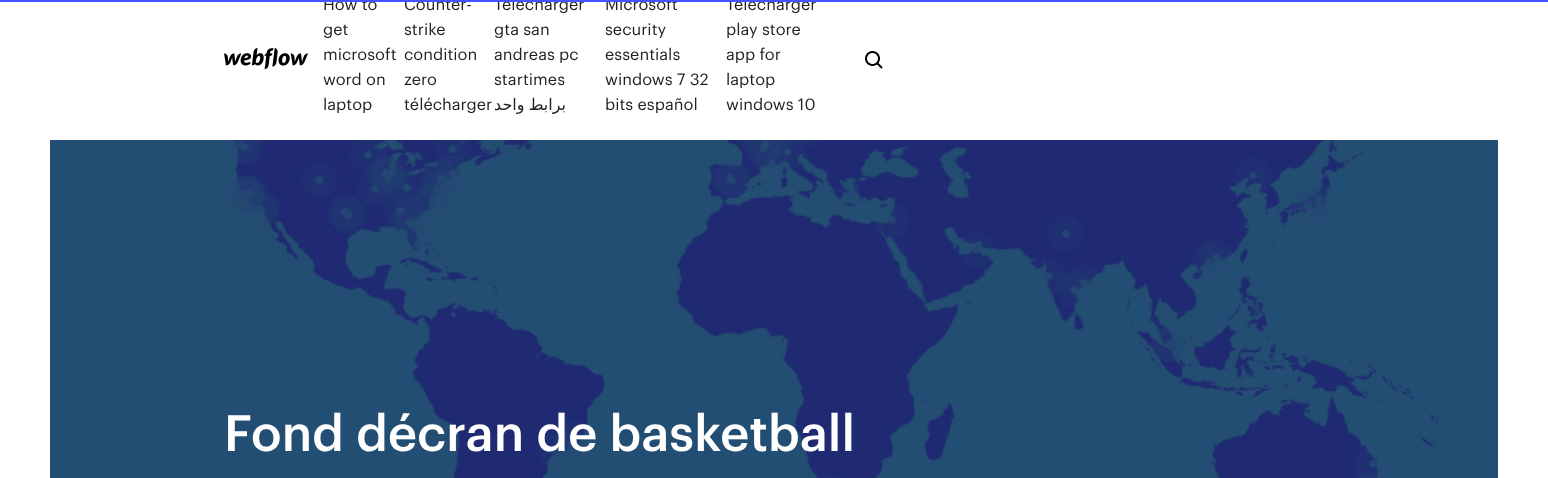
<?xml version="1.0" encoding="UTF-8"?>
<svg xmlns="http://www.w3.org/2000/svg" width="1548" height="478">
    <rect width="100%" height="100%" fill="#FFFFFF"/>
    <text x="323" y="10" font-family="Graphik" font-size="16" fill="#222222">How to</text>
    <text x="404" y="10" font-family="Graphik" font-size="16" fill="#222222">Counter-</text>
    <text x="494" y="10" font-family="Graphik" font-size="16" fill="#222222">Telecharger</text>
    <text x="605" y="10" font-family="Graphik" font-size="16" fill="#222222">Microsoft</text>
    <text x="726" y="10" font-family="Graphik" font-size="16" fill="#222222">Télécharger</text>
    <rect x="0" y="0" width="1548" height="2" fill="#4353FF"/>
    <image x="224" y="48" width="84" height="22" href="img_01.png"/>
    <text font-family="Graphik" font-size="16" fill="#222222">
        <tspan x="323" y="35">get</tspan>
        <tspan x="323" y="60">microsoft</tspan>
        <tspan x="323" y="85">word on</tspan>
        <tspan x="323" y="110">laptop</tspan>
    </text>
    <text font-family="Graphik" font-size="16" fill="#222222">
        <tspan x="404" y="35">strike</tspan>
        <tspan x="404" y="60">condition</tspan>
        <tspan x="404" y="85">zero</tspan>
        <tspan x="404" y="110">télécharger</tspan>
    </text>
    <text font-family="Graphik" font-size="16" fill="#222222">
        <tspan x="494" y="35">gta san</tspan>
        <tspan x="494" y="60">andreas pc</tspan>
        <tspan x="494" y="85">startimes</tspan>
    </text>
    <text x="566" y="110" word-spacing="-1" font-family="DejaVu Sans" font-size="16" direction="rtl" fill="#222222">برابط واحد</text>
    <text font-family="Graphik" font-size="16" fill="#222222">
        <tspan x="605" y="35">security</tspan>
        <tspan x="605" y="60">essentials</tspan>
        <tspan x="605" y="85">windows 7 32</tspan>
        <tspan x="605" y="110">bits español</tspan>
    </text>
    <text font-family="Graphik" font-size="16" fill="#222222">
        <tspan x="726" y="35">play store</tspan>
        <tspan x="726" y="60">app for</tspan>
        <tspan x="726" y="85">laptop</tspan>
        <tspan x="726" y="110">windows 10</tspan>
    </text>
    <image x="865" y="51" width="18" height="18" href="img_02.png"/>
    <image x="50" y="140" width="1448" height="338" href="img_03.png"/>
    <text x="224" y="451" font-family="Graphik" font-size="50" font-weight="500" fill="#FFFFFF">Fond décran de basketball</text>
</svg>
